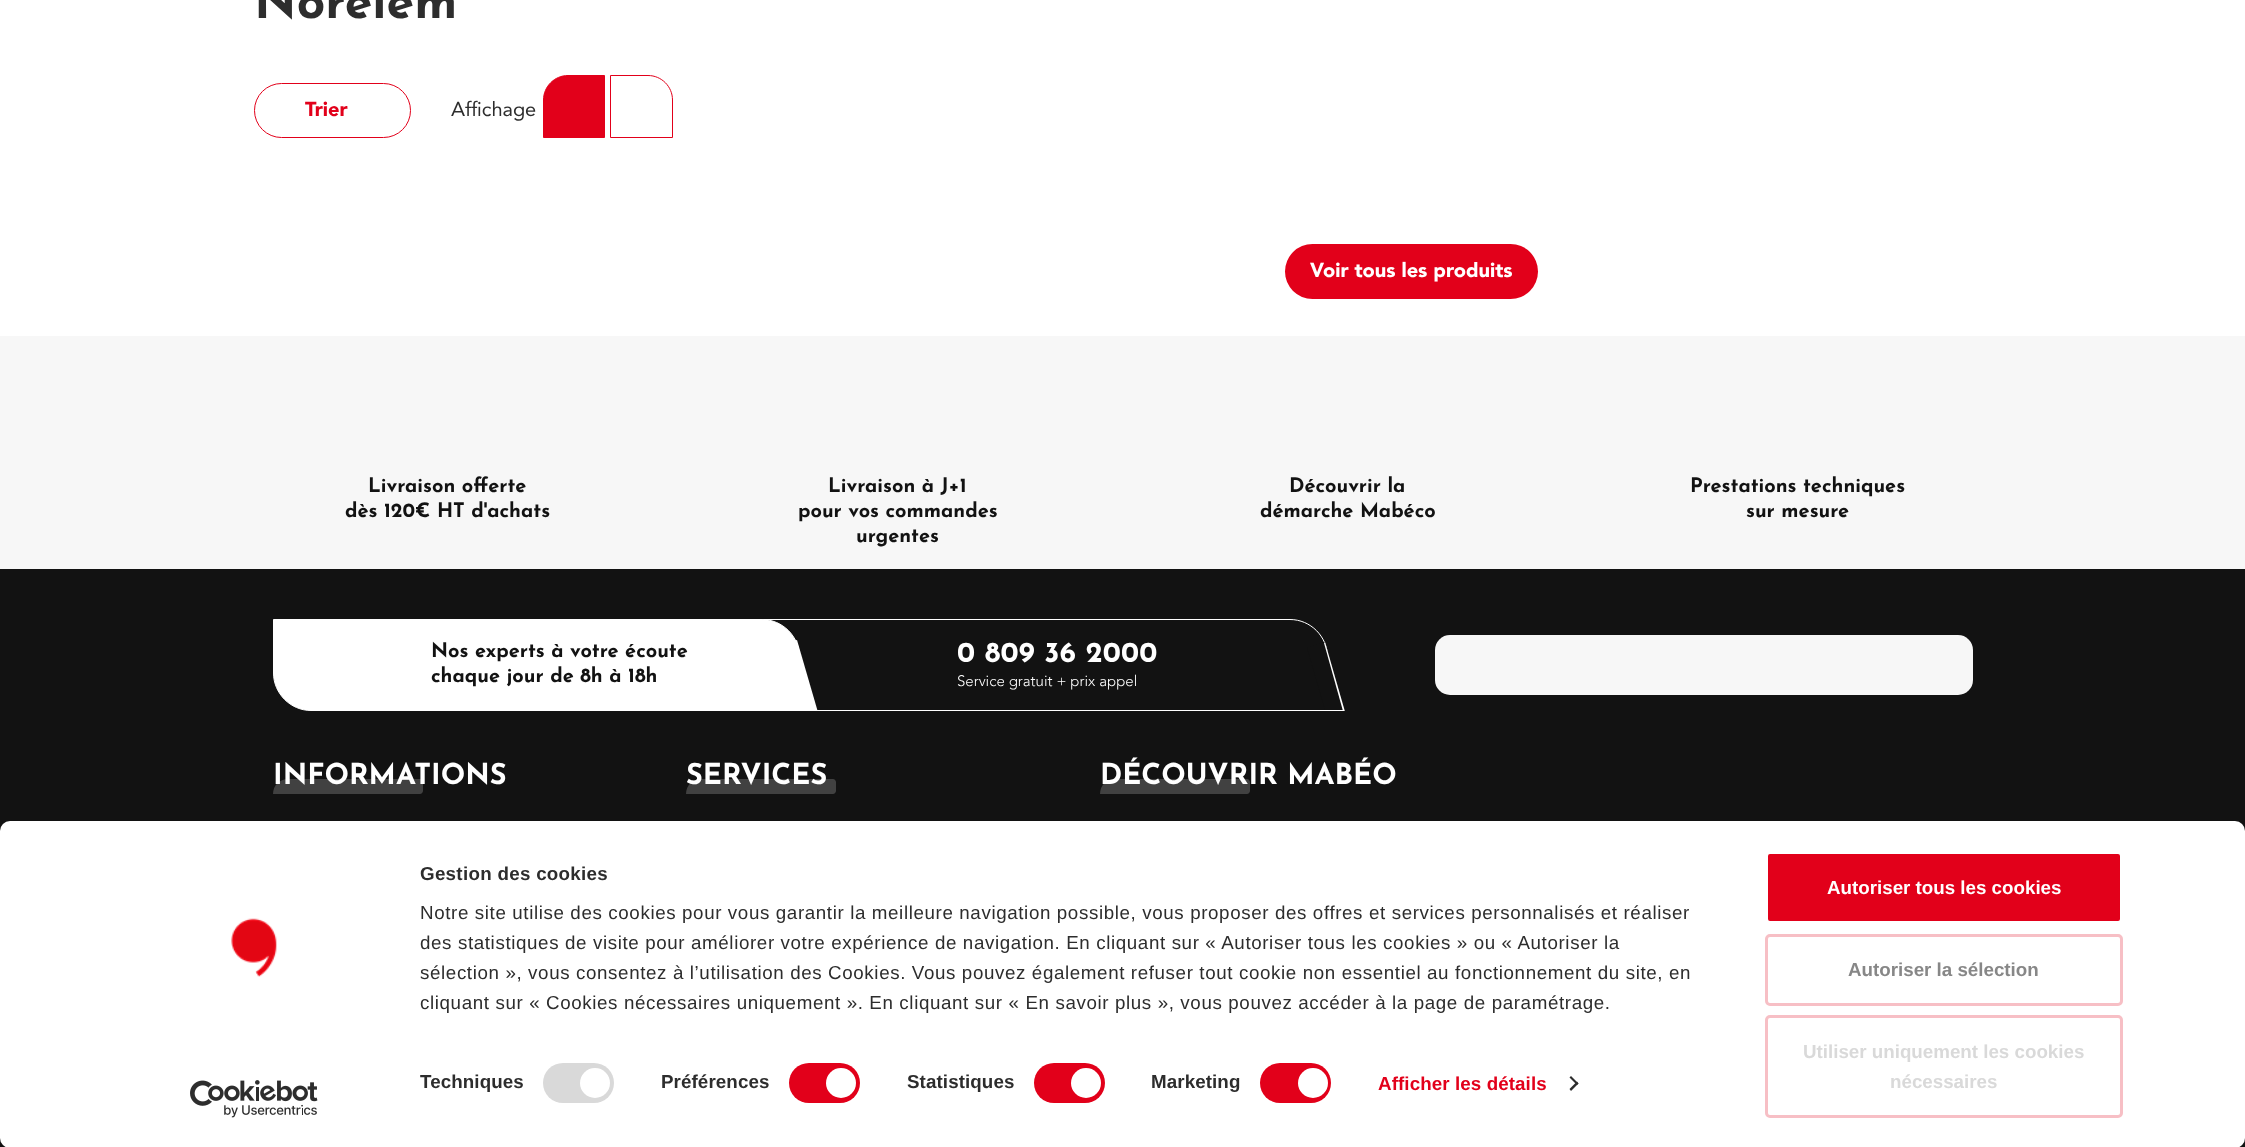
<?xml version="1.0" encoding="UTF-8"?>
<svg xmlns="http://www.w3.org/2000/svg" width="2245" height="1147">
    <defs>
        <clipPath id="clip1"><rect x="273" y="619" width="1073" height="92"/></clipPath>
    </defs>
    <rect width="100%" height="100%" fill="#FFFFFF"/>
    <text x="254" y="18" font-family="Josefin Sans" font-size="50" font-weight="700" fill="#2D2D2D">Norelem</text>
    <rect x="254.5" y="83.5" width="156" height="54" rx="27" fill="none" stroke="#E2001A"/>
    <text x="305" y="116" font-family="Avenir" font-size="20" font-weight="900" fill="#E2001A">Trier</text>
    <text x="451" y="116" font-family="Avenir" font-size="20" fill="#2D2D2D">Affichage</text>
    <path d="M 568 75.5 H 604.5 V 137.5 H 543.5 V 100 C 543.5 86.5 554.5 75.5 568 75.5 Z" fill="#E2001A" stroke="#E2001A"/>
    <path d="M 610.5 75.5 H 648 C 661.5 75.5 672.5 86.5 672.5 100 V 137.5 H 610.5 Z" fill="none" stroke="#E2001A"/>
    <rect x="1285" y="244" width="253" height="55" rx="27.5" fill="#E2001A"/>
    <text x="1310" y="277" font-family="Avenir" font-size="20" font-weight="900" fill="#FFFFFF">Voir tous les produits</text>
    <rect x="0" y="569" width="2245" height="578" fill="#121212"/>
    <rect x="0" y="336" width="2245" height="233" fill="#F7F7F7"/>
    <text x="368" y="492" font-family="Josefin Sans" font-size="20" font-weight="700" fill="#121212">Livraison offerte</text>
    <text x="345" y="517" font-family="Josefin Sans" font-size="20" font-weight="700" fill="#121212">dès 120€ HT d'achats</text>
    <text x="828" y="492" font-family="Josefin Sans" font-size="20" font-weight="700" fill="#121212">Livraison à J+1</text>
    <text x="798" y="517" font-family="Josefin Sans" font-size="20" font-weight="700" fill="#121212">pour vos commandes</text>
    <text x="856" y="542" font-family="Josefin Sans" font-size="20" font-weight="700" fill="#121212">urgentes</text>
    <text x="1289" y="492" font-family="Josefin Sans" font-size="20" font-weight="700" fill="#121212">Découvrir la</text>
    <text x="1260" y="517" font-family="Josefin Sans" font-size="20" font-weight="700" fill="#121212">démarche Mabéco</text>
    <text x="1690" y="492" font-family="Josefin Sans" font-size="20" font-weight="700" fill="#121212">Prestations techniques</text>
    <text x="1746" y="517" font-family="Josefin Sans" font-size="20" font-weight="700" fill="#121212">sur mesure</text>
    <path d="M 273.5 619.5 H 762 C 782.5 619.5 799.5 636.5 799.5 657 V 710.5 H 311 C 290.5 710.5 273.5 693.5 273.5 673 Z" fill="#FFFFFF" stroke="#FFFFFF"/>
    <text font-family="Josefin Sans" font-size="20" font-weight="700" fill="#121212">
        <tspan x="431" y="657">Nos experts à votre écoute</tspan>
        <tspan x="431" y="682">chaque jour de 8h à 18h</tspan>
    </text>
    <g clip-path="url(#clip1)">
        <path d="M 761 650 L 797 640 L 822 726 L 786 737 Z" fill="#FFFFFF"/>
    </g>
    <path d="M 763.5 619.5 H 1290 C 1310.5 619.5 1327.5 636.5 1327.5 657 V 710.5 H 763.5 Z" fill="none" stroke="#FFFFFF"/>
    <text x="957" y="662" font-family="Josefin Sans" font-size="28.75" font-weight="700" letter-spacing="0.25" fill="#FFFFFF">0 809 36 2000</text>
    <text x="957" y="686" font-family="Avenir" font-size="15" font-weight="300" fill="#FFFFFF">Service gratuit + prix appel</text>
    <g clip-path="url(#clip1)">
        <path d="M 1307 648 L 1325 642 L 1350 729 L 1332 734 Z" fill="#121212"/>
        <path d="M 1324 643 L 1325 642 L 1350 729 H 1348 Z" fill="#FFFFFF"/>
    </g>
    <rect x="1324" y="710" width="20" height="1" fill="#FFFFFF"/>
    <rect x="1435" y="635" width="538" height="60" rx="15" fill="#F7F7F7"/>
    <text x="273" y="784" font-family="Josefin Sans" font-size="28.75" font-weight="700" fill="#FFFFFF">INFORMATIONS</text>
    <path d="M 288 779 H 420 C 421.5 779 423 780.5 423 782 V 791 C 423 792.5 421.5 794 420 794 H 273 C 273 785.5 279.5 779 288 779 Z" fill="#FFFFFF" fill-opacity="0.2"/>
    <text x="686" y="784" font-family="Josefin Sans" font-size="28.75" font-weight="700" fill="#FFFFFF">SERVICES</text>
    <path d="M 701 779 H 833 C 834.5 779 836 780.5 836 782 V 791 C 836 792.5 834.5 794 833 794 H 686 C 686 785.5 692.5 779 701 779 Z" fill="#FFFFFF" fill-opacity="0.2"/>
    <text x="1100" y="784" font-family="Josefin Sans" font-size="28.75" font-weight="700" fill="#FFFFFF">DÉCOUVRIR MABÉO</text>
    <path d="M 1115 779 H 1247 C 1248.5 779 1250 780.5 1250 782 V 791 C 1250 792.5 1248.5 794 1247 794 H 1100 C 1100 785.5 1106.5 779 1115 779 Z" fill="#FFFFFF" fill-opacity="0.2"/>
    <rect x="0" y="821" width="2245" height="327" rx="10" fill="#FFFFFF"/>
    <image x="231" y="918" width="46" height="59" href="img_01.png"/>
    <image x="190" y="1080" width="128" height="38" href="img_02.png"/>
    <text x="420" y="880" font-family="Liberation Sans" font-size="18.75" font-weight="700" letter-spacing="0.3" fill="#2D2D2D">Gestion des cookies</text>
    <text font-family="Liberation Sans" font-size="18.75" letter-spacing="0.62" fill="#2D2D2D">
        <tspan x="420" y="919">Notre site utilise des cookies pour vous garantir la meilleure navigation possible, vous proposer des offres et services personnalisés et réaliser</tspan>
        <tspan x="420" y="949">des statistiques de visite pour améliorer votre expérience de navigation. En cliquant sur « Autoriser tous les cookies » ou « Autoriser la</tspan>
        <tspan x="420" y="979">sélection », vous consentez à l’utilisation des Cookies. Vous pouvez également refuser tout cookie non essentiel au fonctionnement du site, en</tspan>
        <tspan x="420" y="1009">cliquant sur « Cookies nécessaires uniquement ». En cliquant sur « En savoir plus », vous pouvez accéder à la page de paramétrage.</tspan>
    </text>
    <text x="420" y="1088" font-family="Liberation Sans" font-size="18.75" font-weight="700" letter-spacing="0.1" fill="#2D2D2D">Techniques</text>
    <rect x="543" y="1063" width="71" height="40" rx="20" fill="#D9D9D9"/>
    <circle cx="595" cy="1083" r="15" fill="#FFFFFF"/>
    <text x="661" y="1088" font-family="Liberation Sans" font-size="18.75" font-weight="700" letter-spacing="0.1" fill="#2D2D2D">Préférences</text>
    <rect x="789" y="1063" width="71" height="40" rx="20" fill="#E2001A"/>
    <circle cx="841" cy="1083" r="15" fill="#FFFFFF"/>
    <text x="907" y="1088" font-family="Liberation Sans" font-size="18.75" font-weight="700" letter-spacing="0.1" fill="#2D2D2D">Statistiques</text>
    <rect x="1034" y="1063" width="71" height="40" rx="20" fill="#E2001A"/>
    <circle cx="1086" cy="1083" r="15" fill="#FFFFFF"/>
    <text x="1151" y="1088" font-family="Liberation Sans" font-size="18.75" font-weight="700" letter-spacing="0.1" fill="#2D2D2D">Marketing</text>
    <rect x="1260" y="1063" width="71" height="40" rx="20" fill="#E2001A"/>
    <circle cx="1313" cy="1083" r="15" fill="#FFFFFF"/>
    <text x="1378" y="1090" font-family="Liberation Sans" font-size="18.75" font-weight="700" letter-spacing="0.1" fill="#E2001A">Afficher les détails</text>
    <path d="M 1571 1076 L 1578.5 1083.5 L 1577 1085 L 1569.5 1077.5 Z" fill="#2D2D2D"/>
    <path d="M 1577 1081.5 L 1578.5 1083.5 L 1571 1091 L 1569.5 1089 Z" fill="#2D2D2D"/>
    <rect x="1766.5" y="852.5" width="355" height="70" rx="3.5" fill="#E2001A" stroke="#FFFFFF" stroke-width="3"/>
    <text x="1827" y="894" font-family="Liberation Sans" font-size="18.75" font-weight="700" fill="#FFFFFF">Autoriser tous les cookies</text>
    <rect x="1766.5" y="935.5" width="355" height="69" rx="3.5" fill="none" stroke="#F7BFC5" stroke-width="3"/>
    <text x="1848" y="976" font-family="Liberation Sans" font-size="18.75" font-weight="700" fill="#878787">Autoriser la sélection</text>
    <rect x="1766.5" y="1016.5" width="355" height="100" rx="3.5" fill="none" stroke="#F7BFC5" stroke-width="3"/>
    <text x="1803" y="1058" font-family="Liberation Sans" font-size="18.75" font-weight="700" fill="#D9D9D9">Utiliser uniquement les cookies</text>
    <text x="1890" y="1088" font-family="Liberation Sans" font-size="18.75" font-weight="700" fill="#D9D9D9">nécessaires</text>
</svg>
